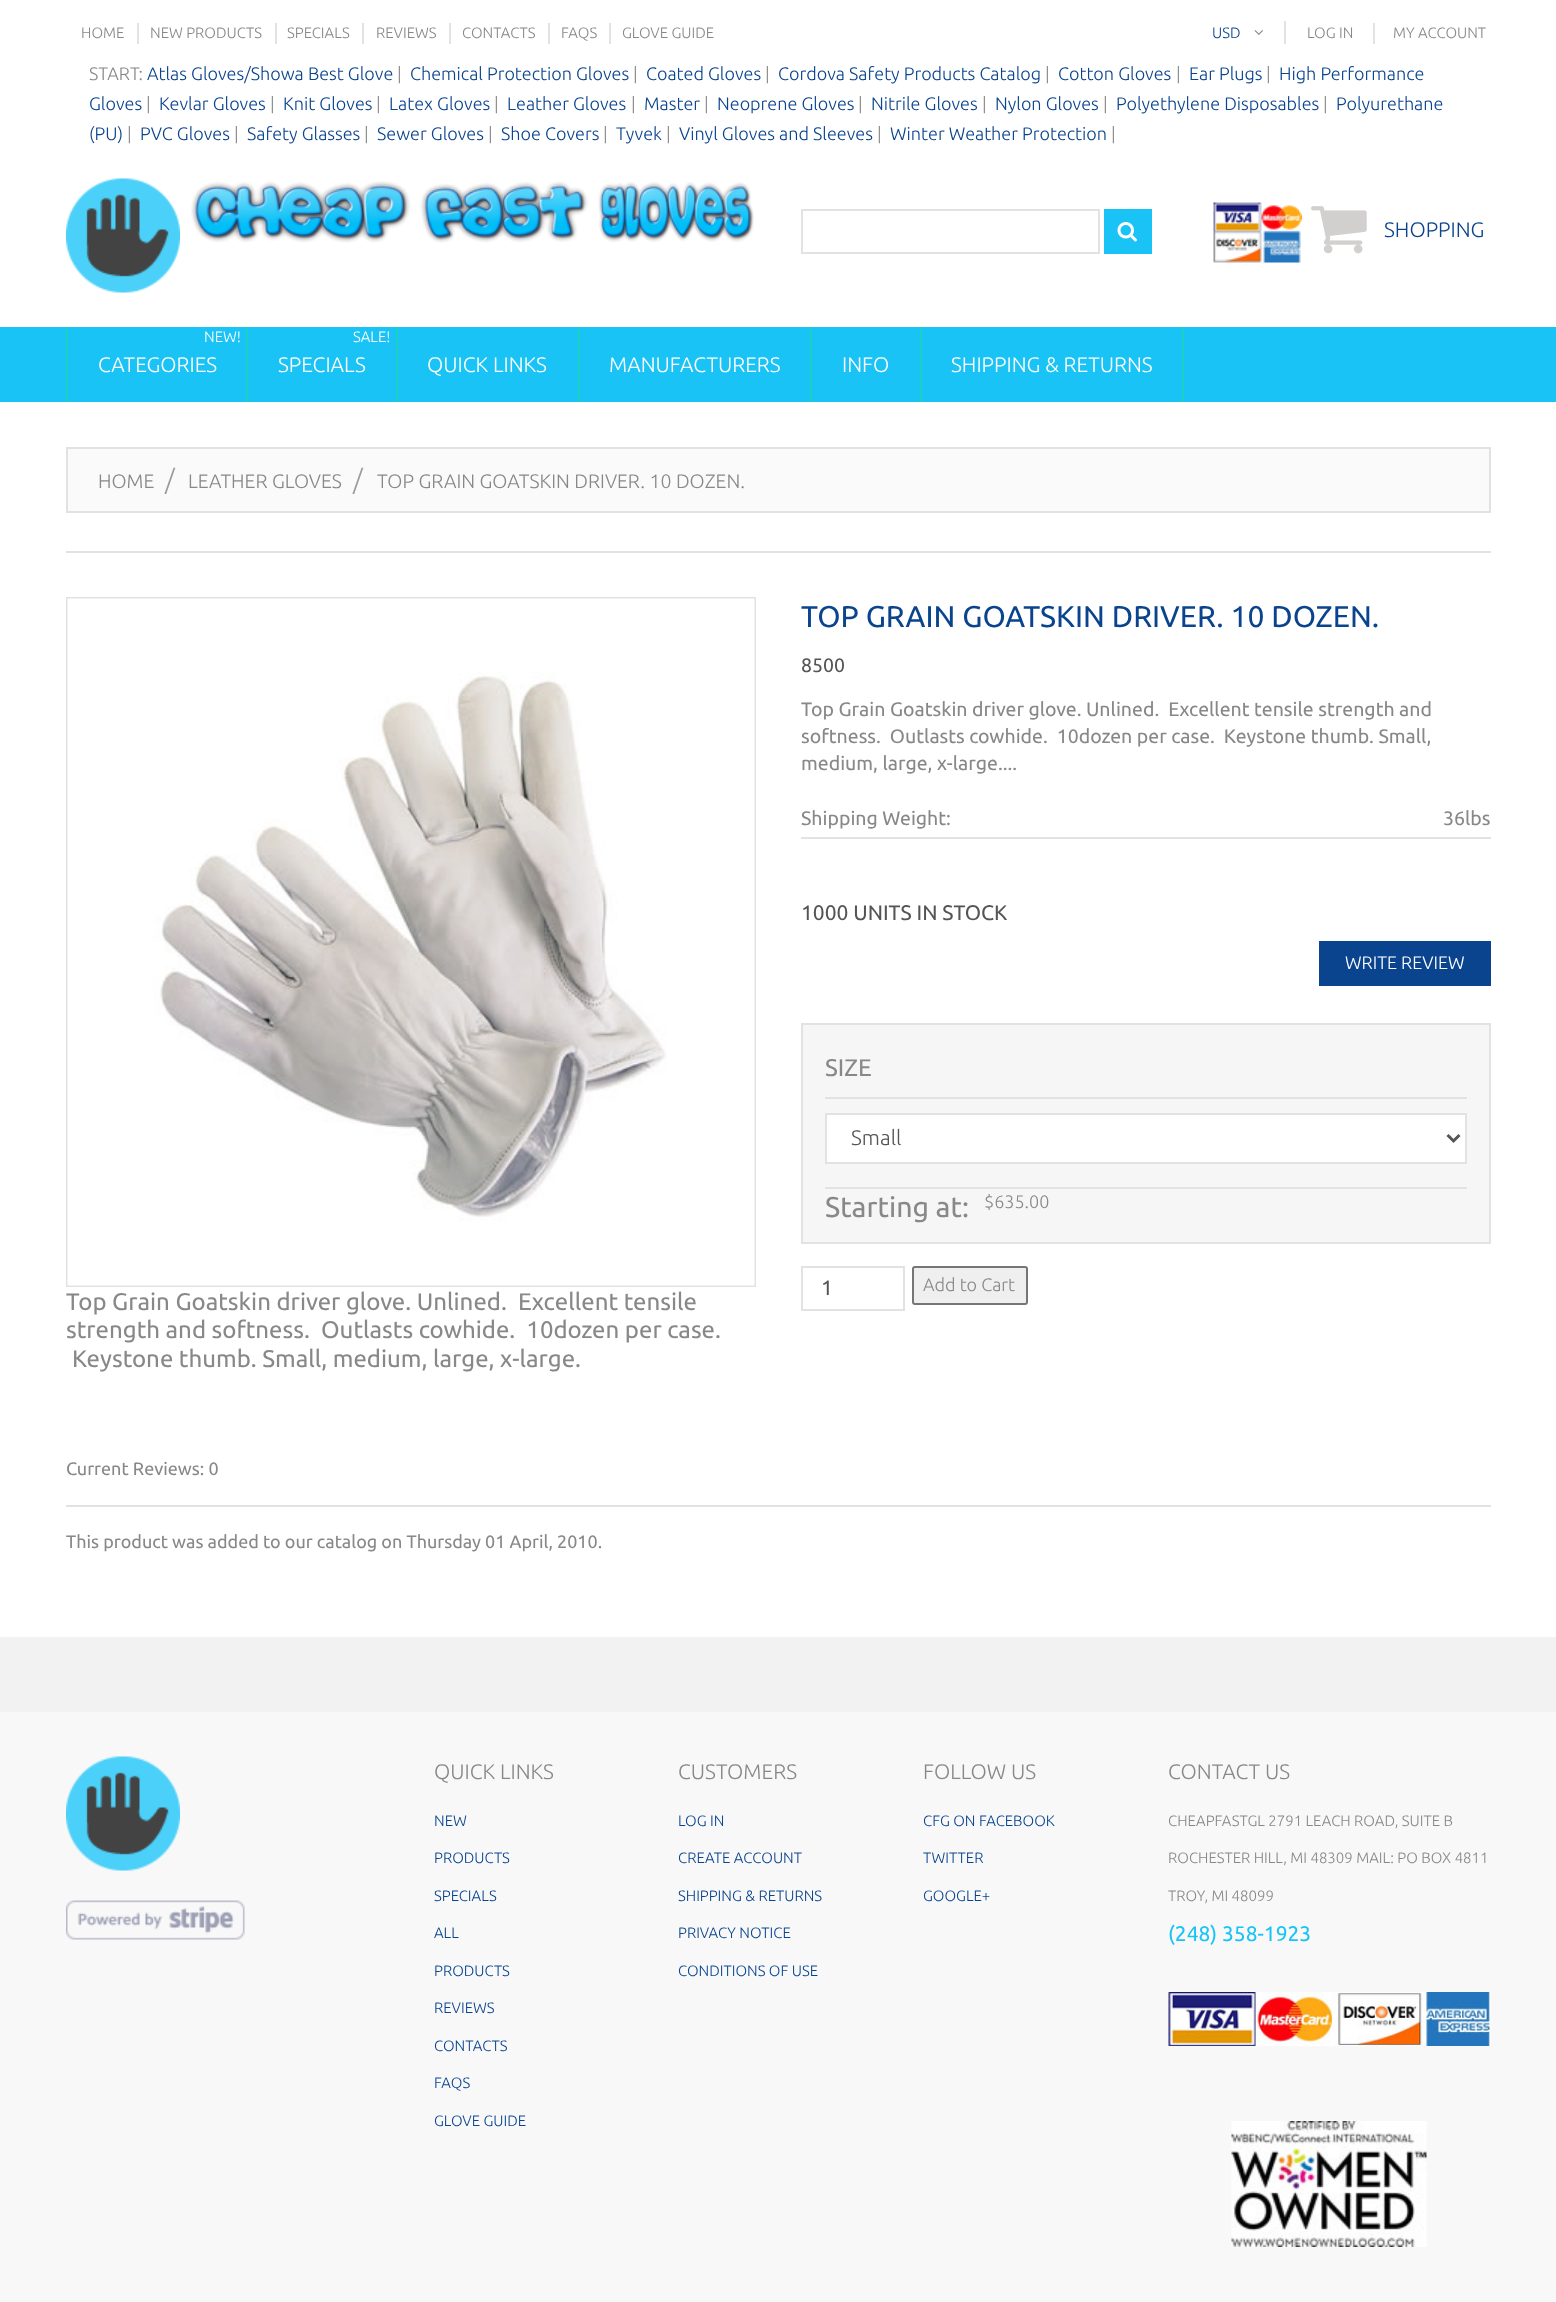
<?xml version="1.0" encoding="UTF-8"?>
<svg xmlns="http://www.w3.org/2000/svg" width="1556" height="2302">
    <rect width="100%" height="100%" fill="#FFFFFF"/>
    <text x="81" y="38" font-family="Ubuntu" font-size="15" font-weight="300" fill="#888888">HOME</text>
    <rect x="137" y="23" width="2" height="21" fill="#E2E2E2"/>
    <text x="150" y="38" font-family="Ubuntu" font-size="15" font-weight="300" fill="#888888">NEW PRODUCTS</text>
    <rect x="275" y="23" width="2" height="21" fill="#E2E2E2"/>
    <text x="287" y="38" font-family="Ubuntu" font-size="15" font-weight="300" fill="#888888">SPECIALS</text>
    <rect x="362" y="23" width="2" height="21" fill="#E2E2E2"/>
    <text x="376" y="38" font-family="Ubuntu" font-size="15" font-weight="300" fill="#888888">REVIEWS</text>
    <rect x="449" y="23" width="2" height="21" fill="#E2E2E2"/>
    <text x="462" y="38" font-family="Ubuntu" font-size="15" font-weight="300" fill="#888888">CONTACTS</text>
    <rect x="548" y="23" width="2" height="21" fill="#E2E2E2"/>
    <text x="561" y="38" font-family="Ubuntu" font-size="15" font-weight="300" fill="#888888">FAQS</text>
    <rect x="609" y="23" width="2" height="21" fill="#E2E2E2"/>
    <text x="622" y="38" font-family="Ubuntu" font-size="15" font-weight="300" fill="#888888">GLOVE GUIDE</text>
    <rect x="1284" y="21" width="2" height="23" fill="#E2E2E2"/>
    <text x="1212" y="38" font-family="Ubuntu" font-size="15" font-weight="300" fill="#0A448E">USD</text>
    <image x="1254" y="30" width="9" height="5" href="img_01.png"/>
    <rect x="1373" y="23" width="2" height="21" fill="#E2E2E2"/>
    <text x="1307" y="38" font-family="Ubuntu" font-size="15" font-weight="300" fill="#888888">LOG IN</text>
    <text x="1393" y="38" font-family="Ubuntu" font-size="15" font-weight="300" fill="#888888">MY ACCOUNT</text>
    <text x="89" y="80" font-family="Ubuntu" font-size="18" font-weight="300" fill="#888888">START:</text>
    <text x="147" y="80" font-family="Ubuntu" font-size="18" font-weight="300" fill="#0A448E">Atlas Gloves/Showa Best Glove</text>
    <text x="397" y="80" font-family="Ubuntu" font-size="18" font-weight="300" fill="#888888">|</text>
    <text x="410" y="80" font-family="Ubuntu" font-size="18" font-weight="300" fill="#0A448E">Chemical Protection Gloves</text>
    <text x="633" y="80" font-family="Ubuntu" font-size="18" font-weight="300" fill="#888888">|</text>
    <text x="646" y="80" font-family="Ubuntu" font-size="18" font-weight="300" fill="#0A448E">Coated Gloves</text>
    <text x="765" y="80" font-family="Ubuntu" font-size="18" font-weight="300" fill="#888888">|</text>
    <text x="778" y="80" font-family="Ubuntu" font-size="18" font-weight="300" fill="#0A448E">Cordova Safety Products Catalog</text>
    <text x="1045" y="80" font-family="Ubuntu" font-size="18" font-weight="300" fill="#888888">|</text>
    <text x="1058" y="80" font-family="Ubuntu" font-size="18" font-weight="300" fill="#0A448E">Cotton Gloves</text>
    <text x="1176" y="80" font-family="Ubuntu" font-size="18" font-weight="300" fill="#888888">|</text>
    <text x="1189" y="80" font-family="Ubuntu" font-size="18" font-weight="300" fill="#0A448E">Ear Plugs</text>
    <text x="1266" y="80" font-family="Ubuntu" font-size="18" font-weight="300" fill="#888888">|</text>
    <text x="1279" y="80" font-family="Ubuntu" font-size="18" font-weight="300" fill="#0A448E">High Performance</text>
    <text x="89" y="110" font-family="Ubuntu" font-size="18" font-weight="300" fill="#0A448E">Gloves</text>
    <text x="146" y="110" font-family="Ubuntu" font-size="18" font-weight="300" fill="#888888">|</text>
    <text x="159" y="110" font-family="Ubuntu" font-size="18" font-weight="300" fill="#0A448E">Kevlar Gloves</text>
    <text x="270" y="110" font-family="Ubuntu" font-size="18" font-weight="300" fill="#888888">|</text>
    <text x="283" y="110" font-family="Ubuntu" font-size="18" font-weight="300" fill="#0A448E">Knit Gloves</text>
    <text x="376" y="110" font-family="Ubuntu" font-size="18" font-weight="300" fill="#888888">|</text>
    <text x="389" y="110" font-family="Ubuntu" font-size="18" font-weight="300" fill="#0A448E">Latex Gloves</text>
    <text x="494" y="110" font-family="Ubuntu" font-size="18" font-weight="300" fill="#888888">|</text>
    <text x="507" y="110" font-family="Ubuntu" font-size="18" font-weight="300" fill="#0A448E">Leather Gloves</text>
    <text x="631" y="110" font-family="Ubuntu" font-size="18" font-weight="300" fill="#888888">|</text>
    <text x="644" y="110" font-family="Ubuntu" font-size="18" font-weight="300" fill="#0A448E">Master</text>
    <text x="704" y="110" font-family="Ubuntu" font-size="18" font-weight="300" fill="#888888">|</text>
    <text x="717" y="110" font-family="Ubuntu" font-size="18" font-weight="300" fill="#0A448E">Neoprene Gloves</text>
    <text x="858" y="110" font-family="Ubuntu" font-size="18" font-weight="300" fill="#888888">|</text>
    <text x="871" y="110" font-family="Ubuntu" font-size="18" font-weight="300" fill="#0A448E">Nitrile Gloves</text>
    <text x="982" y="110" font-family="Ubuntu" font-size="18" font-weight="300" fill="#888888">|</text>
    <text x="995" y="110" font-family="Ubuntu" font-size="18" font-weight="300" fill="#0A448E">Nylon Gloves</text>
    <text x="1103" y="110" font-family="Ubuntu" font-size="18" font-weight="300" fill="#888888">|</text>
    <text x="1116" y="110" font-family="Ubuntu" font-size="18" font-weight="300" fill="#0A448E">Polyethylene Disposables</text>
    <text x="1323" y="110" font-family="Ubuntu" font-size="18" font-weight="300" fill="#888888">|</text>
    <text x="1336" y="110" font-family="Ubuntu" font-size="18" font-weight="300" fill="#0A448E">Polyurethane</text>
    <text x="89" y="140" font-family="Ubuntu" font-size="18" font-weight="300" fill="#0A448E">(PU)</text>
    <text x="127" y="140" font-family="Ubuntu" font-size="18" font-weight="300" fill="#888888">|</text>
    <text x="140" y="140" font-family="Ubuntu" font-size="18" font-weight="300" fill="#0A448E">PVC Gloves</text>
    <text x="234" y="140" font-family="Ubuntu" font-size="18" font-weight="300" fill="#888888">|</text>
    <text x="247" y="140" font-family="Ubuntu" font-size="18" font-weight="300" fill="#0A448E">Safety Glasses</text>
    <text x="364" y="140" font-family="Ubuntu" font-size="18" font-weight="300" fill="#888888">|</text>
    <text x="377" y="140" font-family="Ubuntu" font-size="18" font-weight="300" fill="#0A448E">Sewer Gloves</text>
    <text x="488" y="140" font-family="Ubuntu" font-size="18" font-weight="300" fill="#888888">|</text>
    <text x="501" y="140" font-family="Ubuntu" font-size="18" font-weight="300" fill="#0A448E">Shoe Covers</text>
    <text x="603" y="140" font-family="Ubuntu" font-size="18" font-weight="300" fill="#888888">|</text>
    <text x="616" y="140" font-family="Ubuntu" font-size="18" font-weight="300" fill="#0A448E">Tyvek</text>
    <text x="666" y="140" font-family="Ubuntu" font-size="18" font-weight="300" fill="#888888">|</text>
    <text x="679" y="140" font-family="Ubuntu" font-size="18" font-weight="300" fill="#0A448E">Vinyl Gloves and Sleeves</text>
    <text x="877" y="140" font-family="Ubuntu" font-size="18" font-weight="300" fill="#888888">|</text>
    <text x="890" y="140" font-family="Ubuntu" font-size="18" font-weight="300" fill="#0A448E">Winter Weather Protection</text>
    <text x="1111" y="140" font-family="Ubuntu" font-size="18" font-weight="300" fill="#888888">|</text>
    <image x="66" y="178" width="114" height="115" href="img_02.png"/>
    <image x="191" y="181" width="563" height="62" href="img_03.png"/>
    <rect x="802" y="210" width="297" height="43" fill="none" stroke="#E2E2E2" stroke-width="2"/>
    <rect x="1104" y="209" width="48" height="45" fill="#19C3F6"/>
    <image x="1117" y="222" width="20" height="20" href="img_04.png"/>
    <image x="1213" y="202" width="89" height="61" href="img_05.png"/>
    <image x="1311" y="206" width="56" height="48" href="img_06.png"/>
    <text x="1384" y="237" font-family="Ubuntu" font-size="21" font-weight="300" fill="#0A448E">SHOPPING</text>
    <rect x="0" y="327" width="1556" height="75" fill="#19C3F6"/>
    <rect x="246" y="327" width="2" height="75" fill="#1CD1C4"/>
    <rect x="66" y="327" width="2" height="75" fill="#1CD1C4"/>
    <text x="204" y="342" font-family="Ubuntu" font-size="15" font-weight="300" fill="#FFFFFF">NEW!</text>
    <text x="98" y="372" font-family="Ubuntu" font-size="21" font-weight="300" fill="#FFFFFF">CATEGORIES</text>
    <rect x="396" y="327" width="2" height="75" fill="#1CD1C4"/>
    <text x="353" y="342" font-family="Ubuntu" font-size="15" font-weight="300" fill="#FFFFFF">SALE!</text>
    <text x="278" y="372" font-family="Ubuntu" font-size="21" font-weight="300" fill="#FFFFFF">SPECIALS</text>
    <rect x="578" y="327" width="2" height="75" fill="#1CD1C4"/>
    <text x="427" y="372" font-family="Ubuntu" font-size="21" font-weight="300" fill="#FFFFFF">QUICK LINKS</text>
    <rect x="810" y="327" width="2" height="75" fill="#1CD1C4"/>
    <text x="609" y="372" font-family="Ubuntu" font-size="21" font-weight="300" fill="#FFFFFF">MANUFACTURERS</text>
    <rect x="920" y="327" width="2" height="75" fill="#1CD1C4"/>
    <text x="842" y="372" font-family="Ubuntu" font-size="21" font-weight="300" fill="#FFFFFF">INFO</text>
    <rect x="1182" y="327" width="2" height="75" fill="#1CD1C4"/>
    <text x="951" y="372" font-family="Ubuntu" font-size="21" font-weight="300" fill="#FFFFFF">SHIPPING &amp; RETURNS</text>
    <rect x="67" y="448" width="1423" height="64" fill="#FAFAFA" stroke="#E2E2E2" stroke-width="2"/>
    <text x="98" y="488" font-family="Ubuntu" font-size="19.5" font-weight="300" fill="#888888">HOME</text>
    <text x="165" y="489" font-family="Ubuntu" font-size="27" font-weight="300" fill="#999999">/</text>
    <text x="188" y="488" font-family="Ubuntu" font-size="19.5" font-weight="300" fill="#888888">LEATHER GLOVES</text>
    <text x="353" y="489" font-family="Ubuntu" font-size="27" font-weight="300" fill="#999999">/</text>
    <text x="377" y="488" font-family="Ubuntu" font-size="19.5" font-weight="300" fill="#888888">TOP GRAIN GOATSKIN DRIVER. 10 DOZEN.</text>
    <rect x="66" y="551" width="1425" height="2" fill="#E2E2E2"/>
    <text x="801" y="627" font-family="Ubuntu" font-size="30" fill="#0A448E">TOP GRAIN GOATSKIN DRIVER. 10 DOZEN.</text>
    <text x="801" y="672" font-family="Ubuntu" font-size="19.5" fill="#555555">8500</text>
    <text font-family="Ubuntu" font-size="19.5" fill="#888888" xml:space="preserve"><tspan x="801" y="716">Top Grain Goatskin driver glove. Unlined.  Excellent tensile strength and</tspan><tspan x="801" y="743">softness.  Outlasts cowhide.  10dozen per case.  Keystone thumb. Small,</tspan><tspan x="801" y="770">medium, large, x-large....</tspan></text>
    <rect x="801" y="837" width="690" height="2" fill="#E2E2E2"/>
    <text x="801" y="825" font-family="Ubuntu" font-size="19.5" fill="#888888">Shipping Weight:</text>
    <text x="1443" y="825" font-family="Ubuntu" font-size="19.5" fill="#888888">36lbs</text>
    <text x="801" y="920" font-family="Ubuntu" font-size="21" fill="#555555">1000 UNITS IN STOCK</text>
    <rect x="1319" y="941" width="172" height="45" fill="#0A448E"/>
    <text x="1345" y="969" font-family="Ubuntu" font-size="18" font-weight="300" fill="#FFFFFF">WRITE REVIEW</text>
    <rect x="802" y="1024" width="688" height="219" fill="#F6F6F6" stroke="#E2E2E2" stroke-width="2"/>
    <rect x="825" y="1187" width="642" height="2" fill="#E2E2E2"/>
    <rect x="825" y="1097" width="642" height="2" fill="#E2E2E2"/>
    <text x="825" y="1076" font-family="Ubuntu" font-size="24" fill="#888888">SIZE</text>
    <rect x="826" y="1114" width="640" height="49" fill="#FFFFFF" stroke="#E2E2E2" stroke-width="2"/>
    <path d="M 1447.5 1135 L 1453.5 1141 L 1459.5 1135" fill="none" stroke="#555555" stroke-width="3"/>
    <text x="851" y="1145" font-family="Ubuntu" font-size="21" font-weight="300" fill="#555555">Small</text>
    <text x="825" y="1217" font-family="Ubuntu" font-size="28.5" fill="#888888">Starting at:</text>
    <text x="984" y="1208" font-family="Ubuntu" font-size="18" font-weight="300" fill="#888888">$635.00</text>
    <rect x="802" y="1267" width="102" height="43" fill="none" stroke="#E2E2E2" stroke-width="2"/>
    <text x="821" y="1295" font-family="Ubuntu" font-size="21" fill="#555555">1</text>
    <rect x="913" y="1267" width="114" height="37" rx="2" fill="#EFEFEF" stroke="#767676" stroke-width="2"/>
    <text x="923" y="1291" font-family="Ubuntu" font-size="18" font-weight="300" fill="#888888">Add to Cart</text>
    <rect x="67" y="598" width="688" height="688" fill="none" stroke="#E2E2E2" stroke-width="2"/>
    <image x="67" y="598" width="688" height="688" href="img_07.png"/>
    <text font-family="Ubuntu" font-size="24" fill="#888888" xml:space="preserve"><tspan x="66" y="1310">Top Grain Goatskin driver glove. Unlined.  Excellent tensile</tspan><tspan x="66" y="1338">strength and softness.  Outlasts cowhide.  10dozen per case.</tspan></text>
    <text x="72" y="1367" font-family="Ubuntu" font-size="24" fill="#888888">Keystone thumb. Small, medium, large, x-large.</text>
    <text x="66" y="1475" font-family="Ubuntu" font-size="18" fill="#888888">Current Reviews: 0</text>
    <rect x="66" y="1505" width="1425" height="2" fill="#E2E2E2"/>
    <text x="66" y="1548" font-family="Ubuntu" font-size="18" fill="#888888">This product was added to our catalog on Thursday 01 April, 2010.</text>
    <rect x="0" y="1712" width="1556" height="590" fill="#F8F8F8"/>
    <rect x="0" y="1637" width="1556" height="75" fill="#F2F2F2"/>
    <image x="66" y="1756" width="114" height="115" href="img_08.png"/>
    <image x="66" y="1900" width="179" height="40" href="img_09.png"/>
    <text x="434" y="1779" font-family="Ubuntu" font-size="21" font-weight="300" fill="#888888">QUICK LINKS</text>
    <text x="434" y="1826" font-family="Ubuntu" font-size="15" font-weight="300" fill="#0A448E">NEW</text>
    <text x="434" y="1863" font-family="Ubuntu" font-size="15" font-weight="300" fill="#0A448E">PRODUCTS</text>
    <text x="434" y="1901" font-family="Ubuntu" font-size="15" font-weight="300" fill="#0A448E">SPECIALS</text>
    <text x="434" y="1938" font-family="Ubuntu" font-size="15" font-weight="300" fill="#0A448E">ALL</text>
    <text x="434" y="1976" font-family="Ubuntu" font-size="15" font-weight="300" fill="#0A448E">PRODUCTS</text>
    <text x="434" y="2013" font-family="Ubuntu" font-size="15" font-weight="300" fill="#0A448E">REVIEWS</text>
    <text x="434" y="2051" font-family="Ubuntu" font-size="15" font-weight="300" fill="#0A448E">CONTACTS</text>
    <text x="434" y="2088" font-family="Ubuntu" font-size="15" font-weight="300" fill="#0A448E">FAQS</text>
    <text x="434" y="2126" font-family="Ubuntu" font-size="15" font-weight="300" fill="#0A448E">GLOVE GUIDE</text>
    <text x="678" y="1779" font-family="Ubuntu" font-size="21" font-weight="300" fill="#888888">CUSTOMERS</text>
    <text x="678" y="1826" font-family="Ubuntu" font-size="15" font-weight="300" fill="#0A448E">LOG IN</text>
    <text x="678" y="1863" font-family="Ubuntu" font-size="15" font-weight="300" fill="#0A448E">CREATE ACCOUNT</text>
    <text x="678" y="1901" font-family="Ubuntu" font-size="15" font-weight="300" fill="#0A448E">SHIPPING &amp; RETURNS</text>
    <text x="678" y="1938" font-family="Ubuntu" font-size="15" font-weight="300" fill="#0A448E">PRIVACY NOTICE</text>
    <text x="678" y="1976" font-family="Ubuntu" font-size="15" font-weight="300" fill="#0A448E">CONDITIONS OF USE</text>
    <text x="923" y="1779" font-family="Ubuntu" font-size="21" font-weight="300" fill="#888888">FOLLOW US</text>
    <text x="923" y="1826" font-family="Ubuntu" font-size="15" font-weight="300" fill="#0A448E">CFG ON FACEBOOK</text>
    <text x="923" y="1863" font-family="Ubuntu" font-size="15" font-weight="300" fill="#0A448E">TWITTER</text>
    <text x="923" y="1901" font-family="Ubuntu" font-size="15" font-weight="300" fill="#0A448E">GOOGLE+</text>
    <text x="1168" y="1779" font-family="Ubuntu" font-size="21" font-weight="300" fill="#888888">CONTACT US</text>
    <text x="1168" y="1826" font-family="Ubuntu" font-size="15" font-weight="300" fill="#888888">CHEAPFASTGL 2791 LEACH ROAD, SUITE B</text>
    <text x="1168" y="1863" font-family="Ubuntu" font-size="15" font-weight="300" fill="#888888">ROCHESTER HILL, MI 48309 MAIL: PO BOX 4811</text>
    <text x="1168" y="1901" font-family="Ubuntu" font-size="15" font-weight="300" fill="#888888">TROY, MI 48099</text>
    <text x="1168" y="1941" font-family="Ubuntu" font-size="21" fill="#19C3F6">(248) 358-1923</text>
    <image x="1168" y="1992" width="323" height="54" href="img_10.png"/>
    <image x="1231" y="2121" width="196" height="126" href="img_11.png"/>
</svg>
